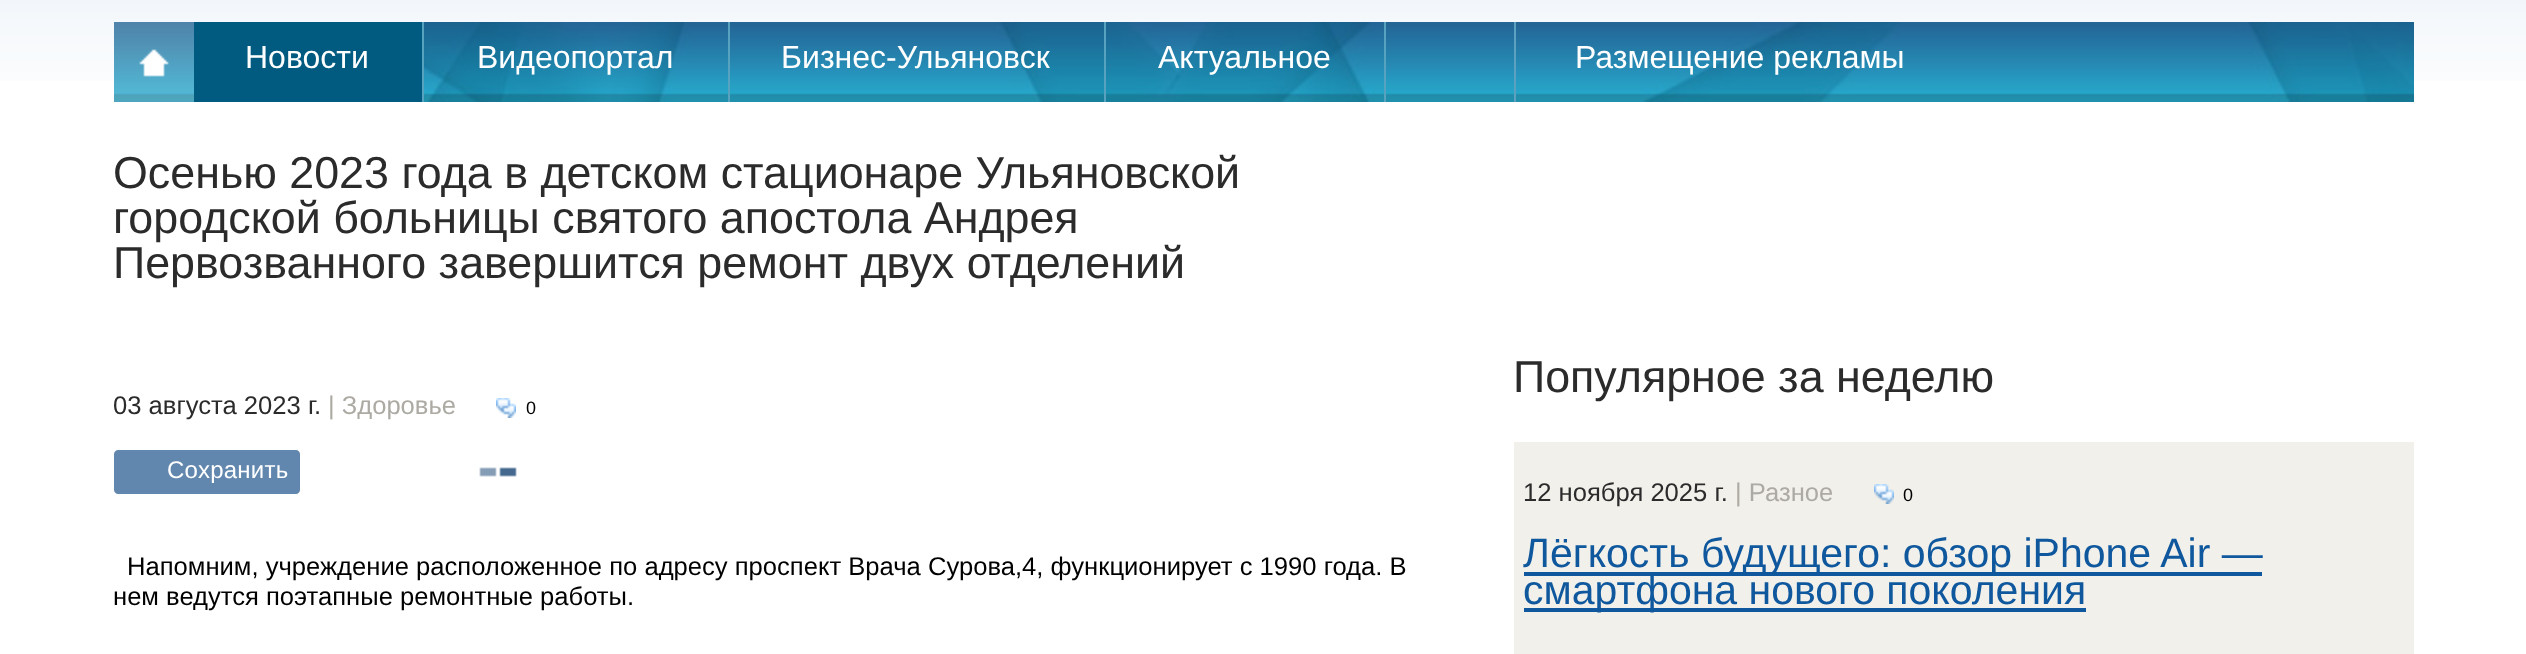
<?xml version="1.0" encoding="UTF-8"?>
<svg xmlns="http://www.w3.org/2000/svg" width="2526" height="654">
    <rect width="100%" height="100%" fill="#FFFFFF"/>
    <image x="0" y="0" width="2526" height="81" href="img_01.png"/>
    <image x="424" y="22" width="1090" height="80" href="img_02.png"/>
    <image x="114" y="22" width="80" height="80" href="img_03.png"/>
    <rect x="194" y="22" width="228" height="80" fill="#015A7F"/>
    <rect x="422" y="22" width="2" height="80" fill="#57A3BF"/>
    <text x="245" y="68" font-family="Liberation Sans" font-size="32" fill="#FFFFFF">Новости</text>
    <rect x="728" y="22" width="2" height="80" fill="#57A3BF"/>
    <text x="477" y="68" font-family="Liberation Sans" font-size="32" fill="#FFFFFF">Видеопортал</text>
    <rect x="1104" y="22" width="2" height="80" fill="#57A3BF"/>
    <text x="781" y="68" font-family="Liberation Sans" font-size="32" fill="#FFFFFF">Бизнес-Ульяновск</text>
    <rect x="1384" y="22" width="2" height="80" fill="#57A3BF"/>
    <text x="1158" y="68" font-family="Liberation Sans" font-size="32" fill="#FFFFFF">Актуальное</text>
    <rect x="1514" y="22" width="2" height="80" fill="#5DA1C1"/>
    <image x="1516" y="22" width="898" height="80" href="img_04.png"/>
    <text x="1575" y="68" font-family="Liberation Sans" font-size="32" fill="#FFFFFF">Размещение рекламы</text>
    <text font-family="Liberation Sans" font-size="44.8" fill="#2B2B2B">
        <tspan x="113" y="188">Осенью 2023 года в детском стационаре Ульяновской</tspan>
        <tspan x="113" y="233">городской больницы святого апостола Андрея</tspan>
        <tspan x="113" y="278">Первозванного завершится ремонт двух отделений</tspan>
    </text>
    <text x="113" y="414" font-family="Liberation Sans" font-size="25.6" fill="#2B2B2B">03 августа 2023 г.</text>
    <text x="328" y="414" font-family="Liberation Sans" font-size="25.6" fill="#ACAAA3">| Здоровье</text>
    <image x="496" y="398" width="20" height="20" href="img_05.png"/>
    <text x="526" y="414" font-family="Liberation Sans" font-size="18" fill="#000000">0</text>
    <path d="M 118 450 H 168 V 494 H 118 C 116 494 114 492 114 490 V 454 C 114 452 116 450 118 450 Z" fill="#6287AE"/>
    <path d="M 168 450 H 296 C 298 450 300 452 300 454 V 490 C 300 492 298 494 296 494 H 168 Z" fill="#6287AE"/>
    <text x="167" y="478" font-family="Liberation Sans" font-size="24" letter-spacing="0.25" fill="#FFFFFF">Сохранить</text>
    <image x="479" y="467" width="38" height="10" href="img_06.png"/>
    <text x="127" y="575" font-family="Liberation Sans" font-size="25.6" fill="#000000">Напомним, учреждение расположенное по адресу проспект Врача Сурова,4, функционирует с 1990 года. В</text>
    <text x="113" y="605" font-family="Liberation Sans" font-size="25.6" fill="#000000">нем ведутся поэтапные ремонтные работы.</text>
    <text x="1513" y="392" font-family="Liberation Sans" font-size="44.8" fill="#2B2B2B">Популярное за неделю</text>
    <rect x="1514" y="442" width="900" height="212" fill="#F2F0EB"/>
    <text x="1523" y="501" font-family="Liberation Sans" font-size="25.6" fill="#2B2B2B">12 ноября 2025 г.</text>
    <text x="1735" y="501" font-family="Liberation Sans" font-size="25.6" fill="#ACAAA3">| Разное</text>
    <image x="1874" y="484" width="20" height="20" href="img_07.png"/>
    <text x="1903" y="501" font-family="Liberation Sans" font-size="18" fill="#000000">0</text>
    <rect x="1524" y="572" width="738" height="4" fill="#0F589D"/>
    <text x="1523" y="567" font-family="Liberation Sans" font-size="41" fill="#0F589D">Лёгкость будущего: обзор iPhone Air —</text>
    <rect x="1524" y="608" width="562" height="4" fill="#0F589D"/>
    <text x="1523" y="604" font-family="Liberation Sans" font-size="41" fill="#0F589D">смартфона нового поколения</text>
</svg>
